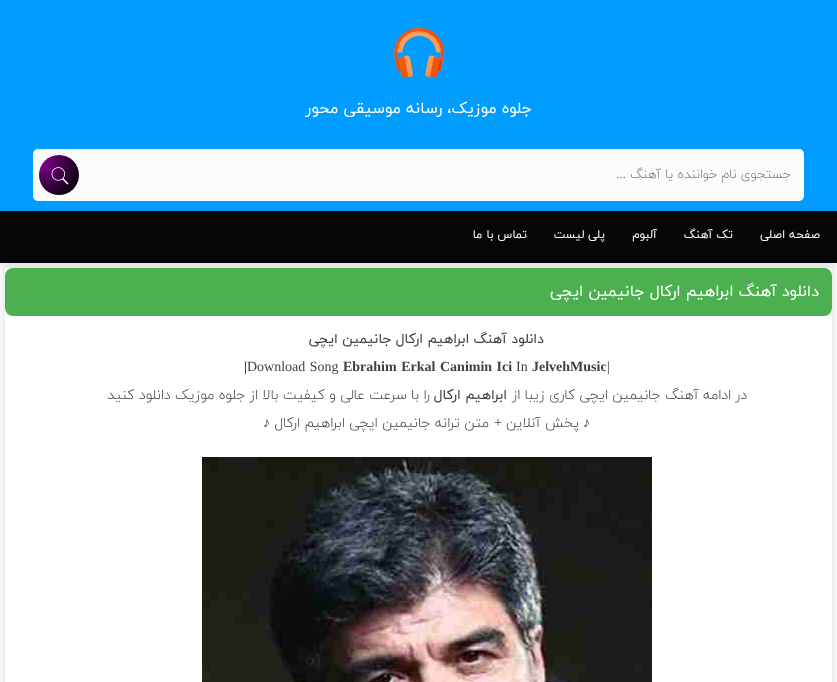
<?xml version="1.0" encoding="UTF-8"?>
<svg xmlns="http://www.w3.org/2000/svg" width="837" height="682">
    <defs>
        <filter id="blur1" x="-50%" y="-200%" width="200%" height="500%"><feGaussianBlur stdDeviation="5"/></filter>
        <radialGradient id="g1" gradientUnits="userSpaceOnUse" cx="43" cy="163" r="48"><stop offset="0" stop-color="#7E008D"/><stop offset="0.9" stop-color="#000000"/></radialGradient>
        <clipPath id="clip1"><rect x="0" y="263" width="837" height="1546"/></clipPath>
    </defs>
    <rect width="100%" height="100%" fill="#FFFFFF"/>
    <rect x="0" y="0" width="837" height="211" fill="#009CFF"/>
    <image x="393" y="27" width="52" height="51" href="img_01.png"/>
    <text x="532" y="113" font-family="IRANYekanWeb" font-size="16" direction="rtl" fill="#FFFFFF">جلوه موزیک، رسانه موسیقی محور</text>
    <rect x="0" y="216" width="837" height="52" fill="#000000" fill-opacity="0.1" filter="url(#blur1)"/>
    <rect x="33" y="149" width="771" height="52" rx="5" fill="#FCFCFC"/>
    <text x="791" y="178" font-family="IRANYekanWeb" font-size="13" font-weight="300" direction="rtl" fill="#757575">جستجوی نام خواننده یا آهنگ</text>
    <text x="626" y="178" font-family="Liberation Serif" font-size="13" direction="rtl" fill="#757575">...</text>
    <circle cx="59" cy="175" r="20" fill="url(#g1)"/>
    <image x="51" y="167" width="18" height="18" href="img_02.png"/>
    <rect x="0" y="211" width="837" height="52" fill="#060606"/>
    <text x="820" y="238" font-family="IRANYekanWeb" font-size="12" direction="rtl" fill="#F5F4F4">صفحه اصلی</text>
    <text x="733" y="238" font-family="IRANYekanWeb" font-size="12" direction="rtl" fill="#F5F4F4">تک آهنگ</text>
    <text x="657" y="238" font-family="IRANYekanWeb" font-size="12" direction="rtl" fill="#F5F4F4">آلبوم</text>
    <text x="605" y="238" font-family="IRANYekanWeb" font-size="12" direction="rtl" fill="#F5F4F4">پلی لیست</text>
    <text x="527" y="238" font-family="IRANYekanWeb" font-size="12" direction="rtl" fill="#F5F4F4">تماس با ما</text>
    <g clip-path="url(#clip1)">
        <rect x="4" y="267" width="829" height="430" fill="#DFE0E0" filter="url(#blur1)"/>
    </g>
    <rect x="5" y="268" width="827" height="414" fill="#FFFFFF"/>
    <rect x="5" y="268" width="827" height="48" rx="8" fill="#4CAF50"/>
    <text x="819" y="296" font-family="IRANYekanWeb" font-size="16" direction="rtl" fill="#FFFFFF">دانلود آهنگ ابراهیم ارکال جانیمین ایچی</text>
    <text x="544" y="343" font-family="IRANYekanWeb" font-size="14" direction="rtl" fill="#3F3F3F">دانلود آهنگ ابراهیم ارکال جانیمین ایچی</text>
    <text x="607" y="371" font-family="Liberation Serif" font-size="14" fill="#3F3F3F">|</text>
    <text x="532" y="371" font-family="Liberation Serif" font-size="14" font-weight="700" fill="#3F3F3F">JelvehMusic</text>
    <text x="516" y="371" font-family="Liberation Serif" font-size="14" fill="#3F3F3F">In</text>
    <text x="440" y="371" word-spacing="1" font-family="Liberation Serif" font-size="14" font-weight="700" fill="#3F3F3F">Canimin Ici</text>
    <text x="343" y="371" word-spacing="1" font-family="Liberation Serif" font-size="14" font-weight="700" fill="#3F3F3F">Ebrahim Erkal</text>
    <text x="247" y="371" word-spacing="1" font-family="Liberation Serif" font-size="14" fill="#3F3F3F">Download Song</text>
    <text x="244" y="371" font-family="Liberation Serif" font-size="14" font-weight="700" fill="#3F3F3F">|</text>
    <text x="747" y="399" font-family="IRANYekanWeb" font-size="14" font-weight="300" direction="rtl" fill="#3F3F3F">در ادامه آهنگ جانیمین ایچی کاری زیبا از</text>
    <text x="507" y="399" font-family="IRANYekanWeb" font-size="14" direction="rtl" fill="#3F3F3F">ابراهیم ارکال</text>
    <text x="430" y="399" font-family="IRANYekanWeb" font-size="14" font-weight="300" direction="rtl" fill="#3F3F3F">را با سرعت عالی و کیفیت بالا از جلوه موزیک دانلود کنید</text>
    <text x="590" y="427" font-family="Liberation Serif" font-size="14" direction="rtl" fill="#3F3F3F">♪</text>
    <text x="579" y="427" font-family="IRANYekanWeb" font-size="14" font-weight="300" direction="rtl" fill="#3F3F3F">پخش آنلاین</text>
    <text x="502" y="427" font-family="Liberation Serif" font-size="14" direction="rtl" fill="#3F3F3F">+</text>
    <text x="489" y="427" font-family="IRANYekanWeb" font-size="14" font-weight="300" direction="rtl" fill="#3F3F3F">متن ترانه جانیمین ایچی ابراهیم ارکال</text>
    <text x="270" y="427" font-family="Liberation Serif" font-size="14" direction="rtl" fill="#3F3F3F">♪</text>
    <image x="202" y="457" width="450" height="225" href="img_03.png"/>
</svg>
